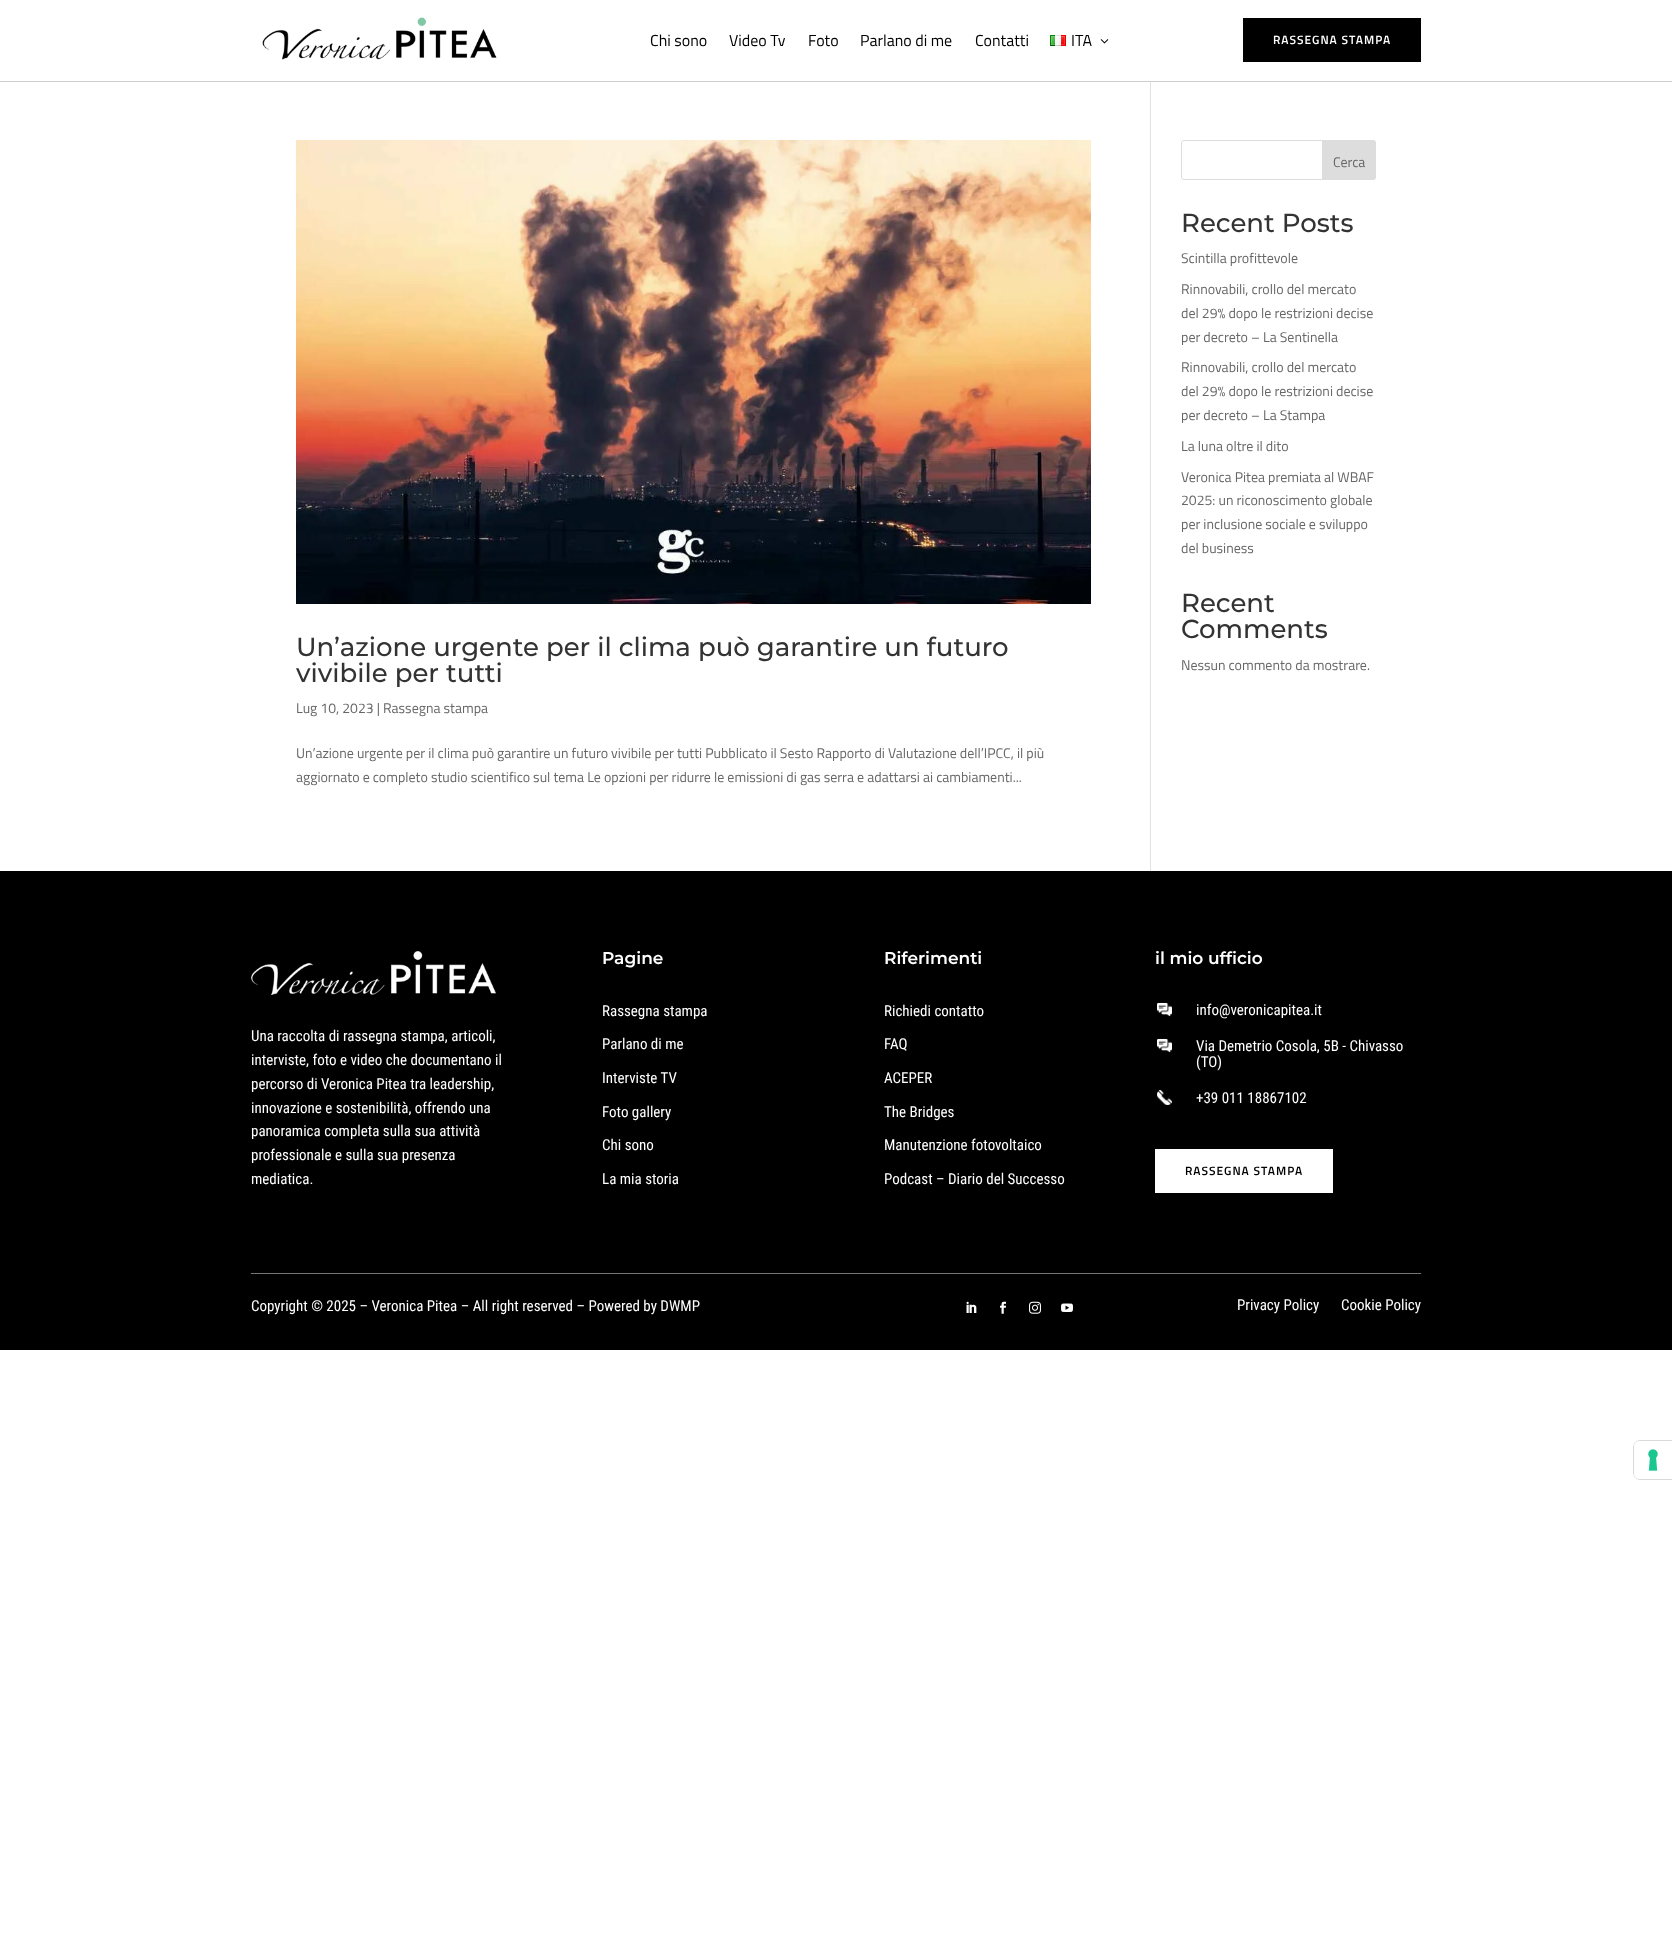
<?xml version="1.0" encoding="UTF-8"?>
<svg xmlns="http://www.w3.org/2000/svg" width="1672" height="1947">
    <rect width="100%" height="100%" fill="#FFFFFF"/>
    <rect x="0" y="81" width="1672" height="1" fill="#CECECE"/>
    <image x="262" y="17" width="235" height="43" href="img_01.png"/>
    <text x="650" y="46" font-family="Titillium Web" font-size="16" fill="#000000">Chi sono</text>
    <text x="729" y="46" font-family="Titillium Web" font-size="16" fill="#000000">Video Tv</text>
    <text x="808" y="46" font-family="Titillium Web" font-size="16" fill="#000000">Foto</text>
    <text x="860" y="46" font-family="Titillium Web" font-size="16" fill="#000000">Parlano di me</text>
    <text x="975" y="46" font-family="Titillium Web" font-size="16" fill="#000000">Contatti</text>
    <image x="1050" y="35" width="16" height="11" href="img_02.png"/>
    <text x="1071" y="46" font-family="Titillium Web" font-size="16" fill="#000000">ITA</text>
    <image x="1100" y="39" width="9" height="5" href="img_03.png"/>
    <rect x="1243" y="18" width="178" height="44" fill="#000000"/>
    <text x="1273" y="44" font-family="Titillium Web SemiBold" font-size="12" font-weight="600" letter-spacing="1" fill="#FFFFFF">RASSEGNA STAMPA</text>
    <rect x="1150" y="82" width="1" height="789" fill="#E2E2E2"/>
    <rect x="1181.5" y="140.5" width="194" height="39" rx="2.5" fill="none" stroke="#DDDDDD"/>
    <path d="M 1322.5 140.5 H 1373 C 1374.5 140.5 1375.5 141.5 1375.5 143 V 177 C 1375.5 178.5 1374.5 179.5 1373 179.5 H 1322.5 Z" fill="#DDDDDD" stroke="#DDDDDD"/>
    <text x="1333" y="167" font-family="Titillium Web" font-size="14" fill="#666666">Cerca</text>
    <text x="1181" y="232" font-family="Montserrat" font-size="26" font-weight="500" fill="#333333">Recent Posts</text>
    <text x="1181" y="263" font-family="Titillium Web" font-size="14" fill="#666666">Scintilla profittevole</text>
    <text font-family="Titillium Web" font-size="14" fill="#666666">
        <tspan x="1181" y="294">Rinnovabili, crollo del mercato</tspan>
        <tspan x="1181" y="318">del 29% dopo le restrizioni decise</tspan>
        <tspan x="1181" y="342">per decreto – La Sentinella</tspan>
    </text>
    <text font-family="Titillium Web" font-size="14" fill="#666666">
        <tspan x="1181" y="372">Rinnovabili, crollo del mercato</tspan>
        <tspan x="1181" y="396">del 29% dopo le restrizioni decise</tspan>
        <tspan x="1181" y="420">per decreto – La Stampa</tspan>
    </text>
    <text x="1181" y="451" font-family="Titillium Web" font-size="14" fill="#666666">La luna oltre il dito</text>
    <text font-family="Titillium Web" font-size="14" fill="#666666">
        <tspan x="1181" y="482">Veronica Pitea premiata al WBAF</tspan>
        <tspan x="1181" y="505">2025: un riconoscimento globale</tspan>
        <tspan x="1181" y="529">per inclusione sociale e sviluppo</tspan>
        <tspan x="1181" y="553">del business</tspan>
    </text>
    <text font-family="Montserrat" font-size="26" font-weight="500" fill="#333333">
        <tspan x="1181" y="612">Recent</tspan>
        <tspan x="1181" y="638">Comments</tspan>
    </text>
    <text x="1181" y="670" font-family="Titillium Web" font-size="14" fill="#666666">Nessun commento da mostrare.</text>
    <image x="296" y="140" width="795" height="464" href="img_04.png"/>
    <text font-family="Montserrat" font-size="26" font-weight="500" fill="#333333">
        <tspan x="296" y="656">Un’azione urgente per il clima può garantire un futuro</tspan>
        <tspan x="296" y="682">vivibile per tutti</tspan>
    </text>
    <text x="296" y="713" font-family="Titillium Web" font-size="14" fill="#666666">Lug 10, 2023 | Rassegna stampa</text>
    <text font-family="Titillium Web" font-size="14" fill="#666666">
        <tspan x="296" y="758">Un’azione urgente per il clima può garantire un futuro vivibile per tutti    Pubblicato il Sesto Rapporto di Valutazione dell’IPCC, il più</tspan>
        <tspan x="296" y="782">aggiornato e completo studio scientifico sul tema Le opzioni per ridurre le emissioni di gas serra e adattarsi ai cambiamenti...</tspan>
    </text>
    <rect x="0" y="871" width="1672" height="479" fill="#000000"/>
    <rect x="251" y="1273" width="1170" height="1" fill="#757575"/>
    <image x="251" y="951" width="245" height="44" href="img_05.png"/>
    <text font-family="Roboto Condensed" font-size="15" fill="#FFFFFF">
        <tspan x="251" y="1041">Una raccolta di rassegna stampa, articoli,</tspan>
        <tspan x="251" y="1065">interviste, foto e video che documentano il</tspan>
        <tspan x="251" y="1089">percorso di Veronica Pitea tra leadership,</tspan>
        <tspan x="251" y="1113">innovazione e sostenibilità, offrendo una</tspan>
        <tspan x="251" y="1136">panoramica completa sulla sua attività</tspan>
        <tspan x="251" y="1160">professionale e sulla sua presenza</tspan>
        <tspan x="251" y="1184">mediatica.</tspan>
    </text>
    <text x="602" y="964" font-family="Montserrat" font-size="17" font-weight="600" fill="#FFFFFF">Pagine</text>
    <text x="602" y="1016" font-family="Roboto Condensed" font-size="15" fill="#FFFFFF">Rassegna stampa</text>
    <text x="602" y="1049" font-family="Roboto Condensed" font-size="15" fill="#FFFFFF">Parlano di me</text>
    <text x="602" y="1083" font-family="Roboto Condensed" font-size="15" fill="#FFFFFF">Interviste TV</text>
    <text x="602" y="1117" font-family="Roboto Condensed" font-size="15" fill="#FFFFFF">Foto gallery</text>
    <text x="602" y="1150" font-family="Roboto Condensed" font-size="15" fill="#FFFFFF">Chi sono</text>
    <text x="602" y="1184" font-family="Roboto Condensed" font-size="15" fill="#FFFFFF">La mia storia</text>
    <text x="884" y="964" font-family="Montserrat" font-size="17" font-weight="600" fill="#FFFFFF">Riferimenti</text>
    <text x="884" y="1016" font-family="Roboto Condensed" font-size="15" fill="#FFFFFF">Richiedi contatto</text>
    <text x="884" y="1049" font-family="Roboto Condensed" font-size="15" fill="#FFFFFF">FAQ</text>
    <text x="884" y="1083" font-family="Roboto Condensed" font-size="15" fill="#FFFFFF">ACEPER</text>
    <text x="884" y="1117" font-family="Roboto Condensed" font-size="15" fill="#FFFFFF">The Bridges</text>
    <text x="884" y="1150" font-family="Roboto Condensed" font-size="15" fill="#FFFFFF">Manutenzione fotovoltaico</text>
    <text x="884" y="1184" font-family="Roboto Condensed" font-size="15" fill="#FFFFFF">Podcast – Diario del Successo</text>
    <text x="1155" y="964" font-family="Montserrat" font-size="17" font-weight="600" fill="#FFFFFF">il mio ufficio</text>
    <image x="1157" y="1002" width="15" height="15" href="img_06.png"/>
    <text x="1196" y="1015" font-family="Roboto Condensed" font-size="15" fill="#FFFFFF">info@veronicapitea.it</text>
    <image x="1157" y="1038" width="15" height="15" href="img_06.png"/>
    <text font-family="Roboto Condensed" font-size="15" fill="#FFFFFF">
        <tspan x="1196" y="1051">Via Demetrio Cosola, 5B - Chivasso</tspan>
        <tspan x="1196" y="1067">(TO)</tspan>
    </text>
    <image x="1157" y="1090" width="15" height="15" href="img_07.png"/>
    <text x="1196" y="1103" font-family="Roboto Condensed" font-size="15" fill="#FFFFFF">+39 011 18867102</text>
    <rect x="1155" y="1149" width="178" height="44" fill="#FFFFFF"/>
    <text x="1185" y="1175" font-family="Titillium Web SemiBold" font-size="12" font-weight="600" letter-spacing="1" fill="#000000">RASSEGNA STAMPA</text>
    <text x="251" y="1311" font-family="Roboto Condensed" font-size="15" fill="#FFFFFF">Copyright © 2025 – Veronica Pitea – All right reserved – Powered by DWMP</text>
    <image x="966" y="1301" width="11" height="12" href="img_08.png"/>
    <image x="1000" y="1301" width="6" height="13" href="img_09.png"/>
    <image x="1029" y="1301" width="12" height="13" href="img_10.png"/>
    <image x="1061" y="1303" width="12" height="9" href="img_11.png"/>
    <text x="1237" y="1310" font-family="Roboto Condensed" font-size="15" fill="#FFFFFF">Privacy Policy</text>
    <text x="1341" y="1310" font-family="Roboto Condensed" font-size="15" fill="#FFFFFF">Cookie Policy</text>
    <path d="M 1640 1440.5 H 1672.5 V 1479.5 H 1640 C 1636.5 1479.5 1633.5 1476.5 1633.5 1473 V 1447 C 1633.5 1443.5 1636.5 1440.5 1640 1440.5 Z" fill="none" stroke="#D9D9D9"/>
    <path d="M 1640 1441 H 1672 V 1479 H 1640 C 1636.5 1479 1634 1476.5 1634 1473 V 1447 C 1634 1443.5 1636.5 1441 1640 1441 Z" fill="#FFFFFF"/>
    <image x="1648" y="1449" width="10" height="22" href="img_12.png"/>
</svg>
